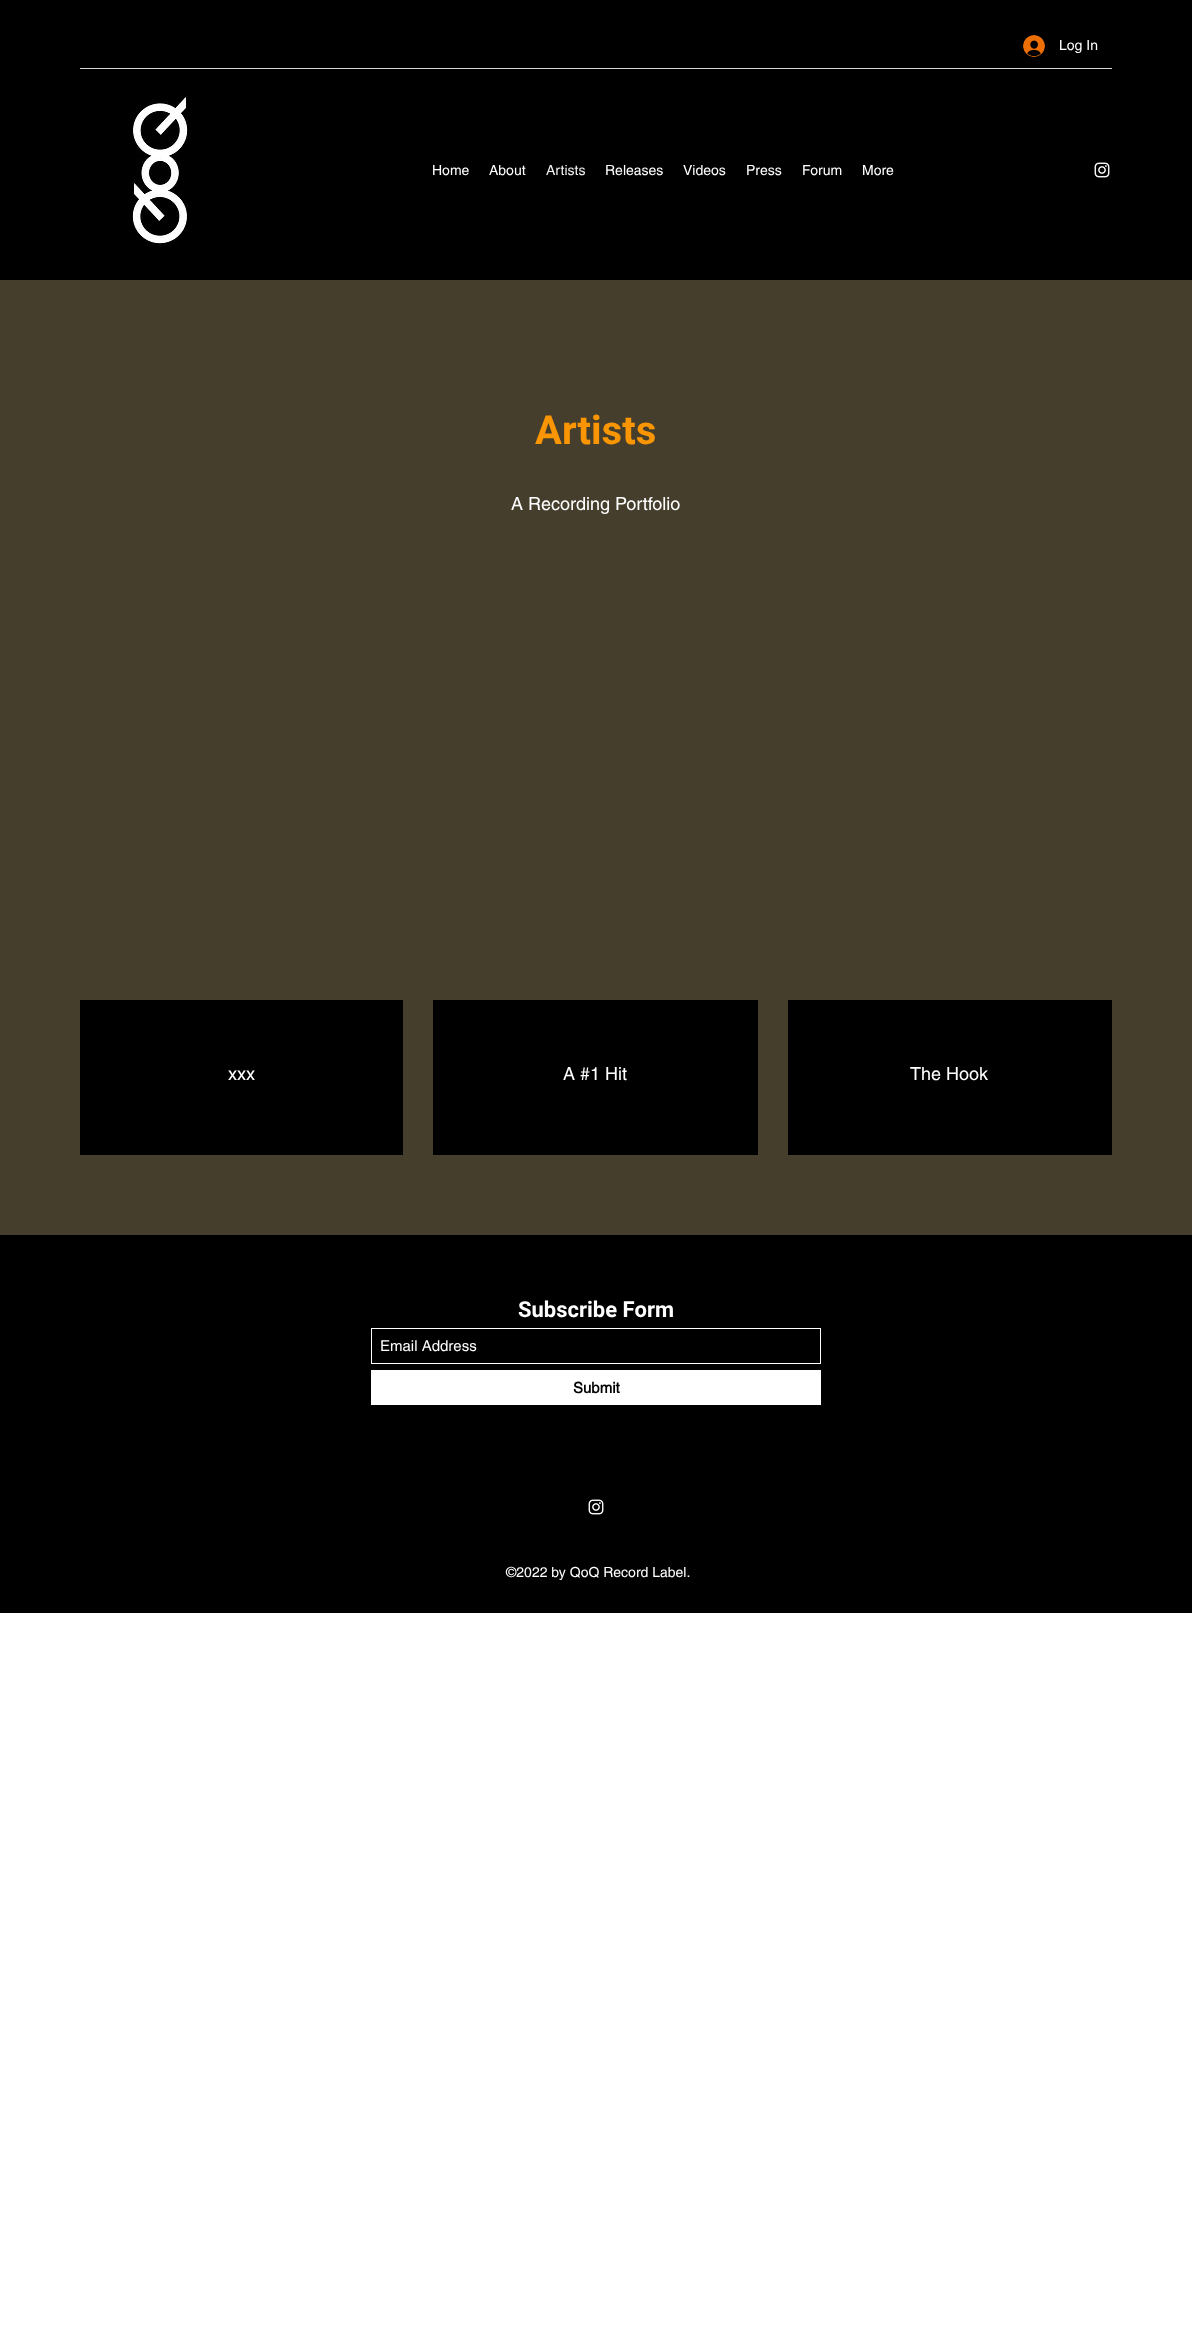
<?xml version="1.0" encoding="UTF-8"?>
<svg xmlns="http://www.w3.org/2000/svg" width="1192" height="2333">
    <rect width="100%" height="100%" fill="#FFFFFF"/>
    <rect x="0" y="0" width="1192" height="280" fill="#000000"/>
    <image x="1023" y="35" width="22" height="22" href="img_01.png"/>
    <text x="1059" y="50" font-family="helvetica" font-size="14" fill="#FFFFFF">Log In</text>
    <rect x="80" y="68" width="1032" height="1" fill="#D9D9D9"/>
    <image x="132" y="94" width="56" height="152" href="img_02.png"/>
    <text x="432" y="175" font-family="helvetica" font-size="14" fill="#FFFFFF">Home</text>
    <text x="489" y="175" font-family="helvetica" font-size="14" fill="#FFFFFF">About</text>
    <text x="546" y="175" font-family="helvetica" font-size="14" fill="#F0F0F0">Artists</text>
    <text x="605" y="175" font-family="helvetica" font-size="14" fill="#FFFFFF">Releases</text>
    <text x="683" y="175" font-family="helvetica" font-size="14" fill="#FFFFFF">Videos</text>
    <text x="746" y="175" font-family="helvetica" font-size="14" fill="#FFFFFF">Press</text>
    <text x="802" y="175" font-family="helvetica" font-size="14" fill="#FFFFFF">Forum</text>
    <text x="862" y="175" font-family="helvetica" font-size="14" fill="#FFFFFF">More</text>
    <image x="1094" y="162" width="16" height="16" href="img_03.png"/>
    <rect x="0" y="280" width="1192" height="955" fill="#453E2D"/>
    <text x="535" y="444" font-family="Roboto" font-size="40" font-weight="700" fill="#FA9504">Artists</text>
    <text x="511" y="510" font-family="helvetica" font-size="18" fill="#FFFFFF">A Recording Portfolio</text>
    <rect x="80" y="1000" width="323" height="155" fill="#000000"/>
    <text x="228" y="1080" font-family="helvetica" font-size="18" fill="#FFFFFF">xxx</text>
    <rect x="433" y="1000" width="325" height="155" fill="#000000"/>
    <text x="563" y="1080" font-family="helvetica" font-size="18" fill="#FFFFFF">A #1 Hit</text>
    <rect x="788" y="1000" width="324" height="155" fill="#000000"/>
    <text x="910" y="1080" font-family="helvetica" font-size="18" fill="#FFFFFF">The Hook</text>
    <rect x="0" y="1235" width="1192" height="378" fill="#000000"/>
    <text x="518" y="1317" font-family="Roboto" font-size="22" font-weight="700" fill="#FFFFFF">Subscribe Form</text>
    <rect x="371.5" y="1328.5" width="449" height="35" fill="none" stroke="#FFFFFF"/>
    <text x="380" y="1351" font-family="helvetica" font-size="15" fill="#FFFFFF">Email Address</text>
    <rect x="371" y="1370" width="450" height="35" fill="#FFFFFF"/>
    <text x="573" y="1393" font-family="helvetica" font-size="15" font-weight="700" fill="#000000">Submit</text>
    <image x="588" y="1499" width="16" height="16" href="img_03.png"/>
    <text x="506" y="1577" font-family="helvetica" font-size="14" fill="#FFFFFF">©2022 by QoQ Record Label.</text>
</svg>
